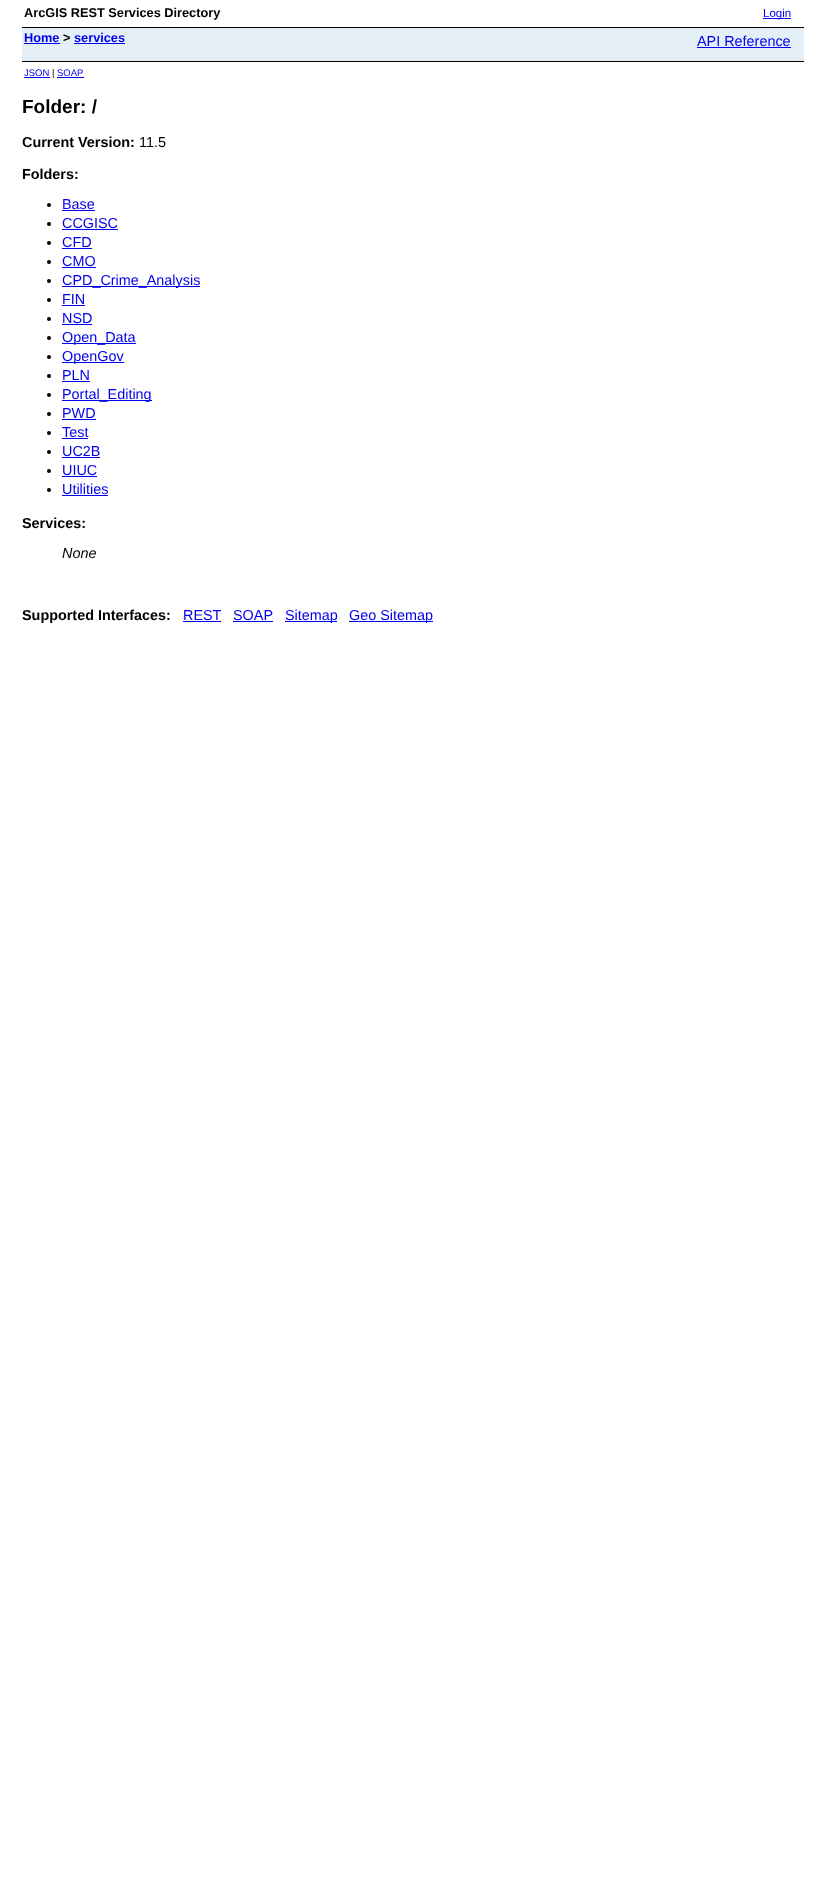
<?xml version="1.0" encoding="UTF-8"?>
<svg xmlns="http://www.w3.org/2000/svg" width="826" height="1888">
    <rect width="100%" height="100%" fill="#FFFFFF"/>
    <text x="24" y="17" font-family="Liberation Sans" font-size="12.75" font-weight="700" fill="#000000">ArcGIS REST Services Directory</text>
    <rect x="763" y="18" width="28" height="1" fill="#0000EE"/>
    <text x="763" y="17" font-family="Liberation Sans" font-size="11.5" fill="#0000EE">Login</text>
    <rect x="22" y="28" width="782" height="33" fill="#E5EFF7"/>
    <rect x="22" y="27" width="782" height="1" fill="#000000"/>
    <rect x="22" y="61" width="782" height="1" fill="#000000"/>
    <text x="24" y="42" font-family="Liberation Sans" font-size="12.75" font-weight="700" fill="#0000EE">Home</text>
    <rect x="24" y="43" width="36" height="1" fill="#0000EE"/>
    <text x="63" y="42" font-family="Liberation Sans" font-size="12.75" font-weight="700" fill="#000000">&gt;</text>
    <text x="74" y="42" font-family="Liberation Sans" font-size="12.75" font-weight="700" fill="#0000EE">services</text>
    <rect x="74" y="43" width="51" height="1" fill="#0000EE"/>
    <text x="697" y="46" font-family="Liberation Sans" font-size="14.4" fill="#0000EE">API Reference</text>
    <rect x="697" y="47" width="94" height="1" fill="#0000EE"/>
    <text x="24" y="76" font-family="Liberation Sans" font-size="9.5" fill="#0000EE">JSON</text>
    <rect x="24" y="77" width="26" height="1" fill="#0000EE"/>
    <text x="52" y="76" font-family="Liberation Sans" font-size="9.5" fill="#000000">|</text>
    <text x="57" y="76" font-family="Liberation Sans" font-size="9.5" fill="#0000EE">SOAP</text>
    <rect x="57" y="77" width="27" height="1" fill="#0000EE"/>
    <text x="22" y="113" font-family="Liberation Sans" font-size="19" font-weight="700" fill="#000000">Folder: /</text>
    <text x="22" y="147" font-family="Liberation Sans" font-size="14.4" font-weight="700" fill="#000000">Current Version:</text>
    <text x="139" y="147" font-family="Liberation Sans" font-size="14.4" fill="#000000">11.5</text>
    <text x="22" y="179" font-family="Liberation Sans" font-size="14.4" font-weight="700" fill="#000000">Folders:</text>
    <circle cx="49" cy="205" r="2" fill="#000000"/>
    <text x="62" y="209" font-family="Liberation Sans" font-size="14.4" fill="#0000EE">Base</text>
    <rect x="62" y="210" width="33" height="1" fill="#0000EE"/>
    <circle cx="49" cy="224" r="2" fill="#000000"/>
    <text x="62" y="228" font-family="Liberation Sans" font-size="14.4" fill="#0000EE">CCGISC</text>
    <rect x="62" y="229" width="56" height="1" fill="#0000EE"/>
    <circle cx="49" cy="243" r="2" fill="#000000"/>
    <text x="62" y="247" font-family="Liberation Sans" font-size="14.4" fill="#0000EE">CFD</text>
    <rect x="62" y="248" width="30" height="1" fill="#0000EE"/>
    <circle cx="49" cy="262" r="2" fill="#000000"/>
    <text x="62" y="266" font-family="Liberation Sans" font-size="14.4" fill="#0000EE">CMO</text>
    <rect x="62" y="267" width="34" height="1" fill="#0000EE"/>
    <circle cx="49" cy="281" r="2" fill="#000000"/>
    <rect x="62" y="286" width="138" height="1" fill="#0000EE"/>
    <text x="62" y="285" font-family="Liberation Sans" font-size="14.4" fill="#0000EE">CPD_Crime_Analysis</text>
    <circle cx="49" cy="300" r="2" fill="#000000"/>
    <text x="62" y="304" font-family="Liberation Sans" font-size="14.4" fill="#0000EE">FIN</text>
    <rect x="62" y="305" width="23" height="1" fill="#0000EE"/>
    <circle cx="49" cy="319" r="2" fill="#000000"/>
    <text x="62" y="323" font-family="Liberation Sans" font-size="14.4" fill="#0000EE">NSD</text>
    <rect x="62" y="324" width="30" height="1" fill="#0000EE"/>
    <circle cx="49" cy="338" r="2" fill="#000000"/>
    <rect x="62" y="343" width="74" height="1" fill="#0000EE"/>
    <text x="62" y="342" font-family="Liberation Sans" font-size="14.4" fill="#0000EE">Open_Data</text>
    <circle cx="49" cy="357" r="2" fill="#000000"/>
    <rect x="62" y="362" width="62" height="1" fill="#0000EE"/>
    <text x="62" y="361" font-family="Liberation Sans" font-size="14.4" fill="#0000EE">OpenGov</text>
    <circle cx="49" cy="376" r="2" fill="#000000"/>
    <text x="62" y="380" font-family="Liberation Sans" font-size="14.4" fill="#0000EE">PLN</text>
    <rect x="62" y="381" width="28" height="1" fill="#0000EE"/>
    <circle cx="49" cy="395" r="2" fill="#000000"/>
    <rect x="62" y="400" width="90" height="1" fill="#0000EE"/>
    <text x="62" y="399" font-family="Liberation Sans" font-size="14.4" fill="#0000EE">Portal_Editing</text>
    <circle cx="49" cy="414" r="2" fill="#000000"/>
    <text x="62" y="418" font-family="Liberation Sans" font-size="14.4" fill="#0000EE">PWD</text>
    <rect x="62" y="419" width="34" height="1" fill="#0000EE"/>
    <circle cx="49" cy="433" r="2" fill="#000000"/>
    <text x="62" y="437" font-family="Liberation Sans" font-size="14.4" fill="#0000EE">Test</text>
    <rect x="62" y="438" width="26" height="1" fill="#0000EE"/>
    <circle cx="49" cy="452" r="2" fill="#000000"/>
    <text x="62" y="456" font-family="Liberation Sans" font-size="14.4" fill="#0000EE">UC2B</text>
    <rect x="62" y="457" width="38" height="1" fill="#0000EE"/>
    <circle cx="49" cy="471" r="2" fill="#000000"/>
    <text x="62" y="475" font-family="Liberation Sans" font-size="14.4" fill="#0000EE">UIUC</text>
    <rect x="62" y="476" width="35" height="1" fill="#0000EE"/>
    <circle cx="49" cy="490" r="2" fill="#000000"/>
    <text x="62" y="494" font-family="Liberation Sans" font-size="14.4" fill="#0000EE">Utilities</text>
    <rect x="62" y="495" width="46" height="1" fill="#0000EE"/>
    <text x="22" y="528" font-family="Liberation Sans" font-size="14.4" font-weight="700" fill="#000000">Services:</text>
    <text x="62" y="558" font-family="Liberation Sans" font-size="14.4" font-style="italic" fill="#000000">None</text>
    <text x="22" y="620" font-family="Liberation Sans" font-size="14.4" font-weight="700" fill="#000000">Supported Interfaces:</text>
    <text x="183" y="620" font-family="Liberation Sans" font-size="14.4" fill="#0000EE">REST</text>
    <rect x="183" y="621" width="38" height="1" fill="#0000EE"/>
    <text x="233" y="620" font-family="Liberation Sans" font-size="14.4" fill="#0000EE">SOAP</text>
    <rect x="233" y="621" width="40" height="1" fill="#0000EE"/>
    <rect x="285" y="621" width="52" height="1" fill="#0000EE"/>
    <text x="285" y="620" font-family="Liberation Sans" font-size="14.4" fill="#0000EE">Sitemap</text>
    <rect x="349" y="621" width="84" height="1" fill="#0000EE"/>
    <text x="349" y="620" font-family="Liberation Sans" font-size="14.4" fill="#0000EE">Geo Sitemap</text>
</svg>
